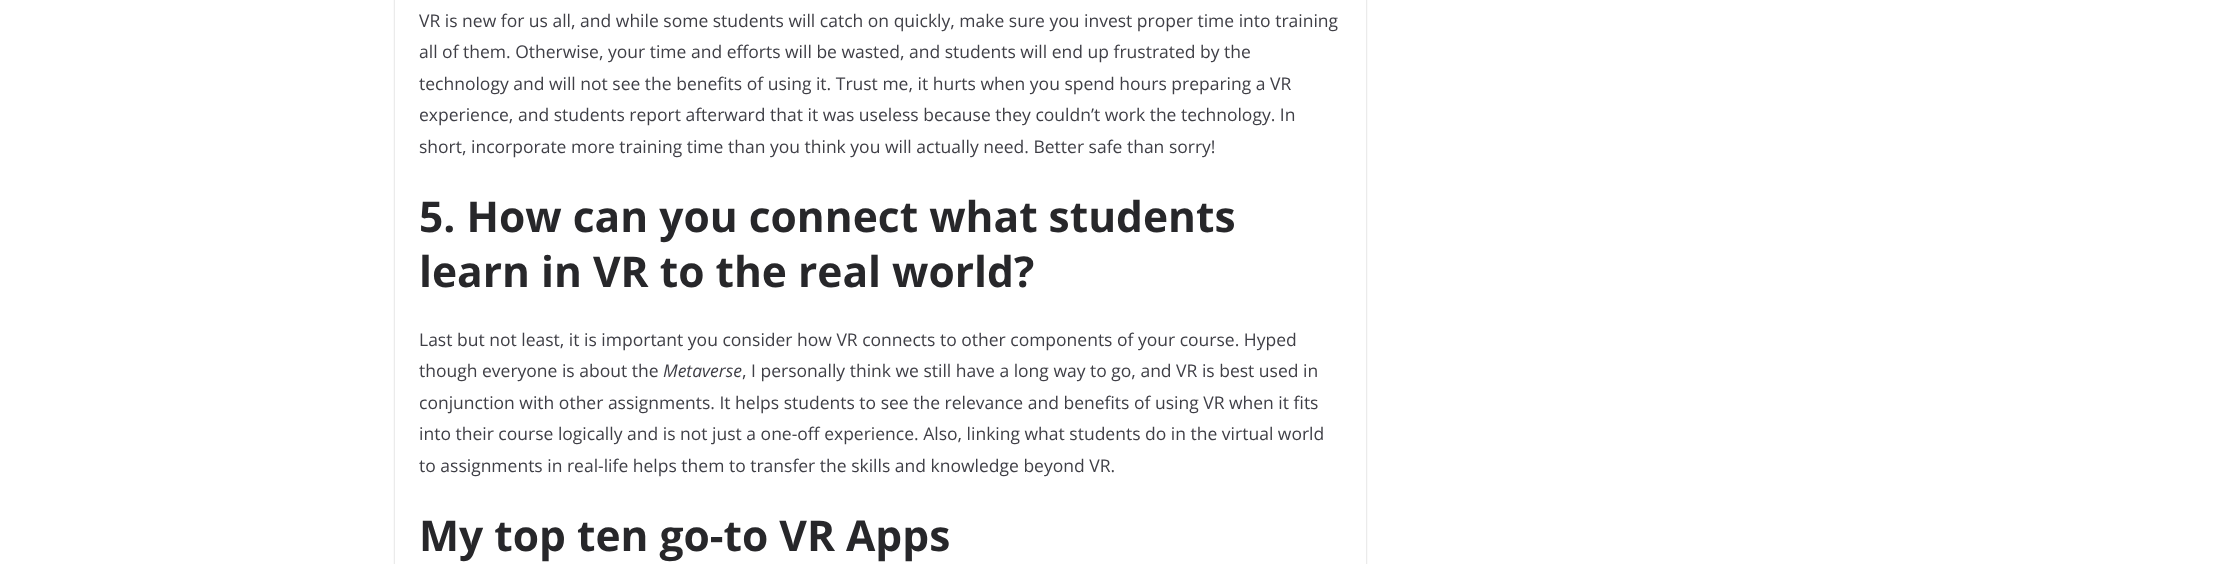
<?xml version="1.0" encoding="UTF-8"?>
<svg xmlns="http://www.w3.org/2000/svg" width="2213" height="564">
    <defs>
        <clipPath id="clip1"><path d="M 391 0 H 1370 V 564 H 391 Z M 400 -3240 H 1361 C 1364 -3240 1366 -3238 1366 -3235 V 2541 C 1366 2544 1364 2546 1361 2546 H 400 C 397 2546 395 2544 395 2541 V -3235 C 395 -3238 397 -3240 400 -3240 Z" clip-rule="evenodd"/></clipPath>
        <filter id="blur1" x="-50%" y="-200%" width="200%" height="500%"><feGaussianBlur stdDeviation="1"/></filter>
    </defs>
    <rect width="100%" height="100%" fill="#FFFFFF"/>
    <g clip-path="url(#clip1)">
        <rect x="395" y="-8" width="971" height="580" rx="5" fill="#000000" fill-opacity="0.24" filter="url(#blur1)"/>
    </g>
    <text font-family="Open Sans" font-size="17.5" fill="#3F3F46">
        <tspan x="419" y="27">VR is new for us all, and while some students will catch on quickly, make sure you invest proper time into training</tspan>
        <tspan x="419" y="58">all of them. Otherwise, your time and efforts will be wasted, and students will end up frustrated by the</tspan>
        <tspan x="419" y="90">technology and will not see the benefits of using it. Trust me, it hurts when you spend hours preparing a VR</tspan>
        <tspan x="419" y="121">experience, and students report afterward that it was useless because they couldn’t work the technology. In</tspan>
        <tspan x="419" y="153">short, incorporate more training time than you think you will actually need. Better safe than sorry!</tspan>
    </text>
    <text font-family="Open Sans" font-size="42.5" font-weight="700" fill="#27272A">
        <tspan x="419" y="232">5. How can you connect what students</tspan>
        <tspan x="419" y="287">learn in VR to the real world?</tspan>
    </text>
    <text font-family="Open Sans" font-size="17.5" fill="#3F3F46">
        <tspan x="419" y="346">Last but not least, it is important you consider how VR connects to other components of your course. Hyped</tspan>
        <tspan x="419" y="377">though everyone is about the</tspan>
    </text>
    <text x="663" y="377" font-family="Open Sans" font-size="17.5" font-style="italic" fill="#3F3F46">Metaverse</text>
    <text x="742" y="377" font-family="Open Sans" font-size="17.5" fill="#3F3F46">, I personally think we still have a long way to go, and VR is best used in</text>
    <text font-family="Open Sans" font-size="17.5" fill="#3F3F46">
        <tspan x="419" y="409">conjunction with other assignments. It helps students to see the relevance and benefits of using VR when it fits</tspan>
        <tspan x="419" y="440">into their course logically and is not just a one-off experience. Also, linking what students do in the virtual world</tspan>
        <tspan x="419" y="472">to assignments in real-life helps them to transfer the skills and knowledge beyond VR.</tspan>
    </text>
    <text x="419" y="551" font-family="Open Sans" font-size="42.5" font-weight="700" fill="#27272A">My top ten go-to VR Apps</text>
</svg>
